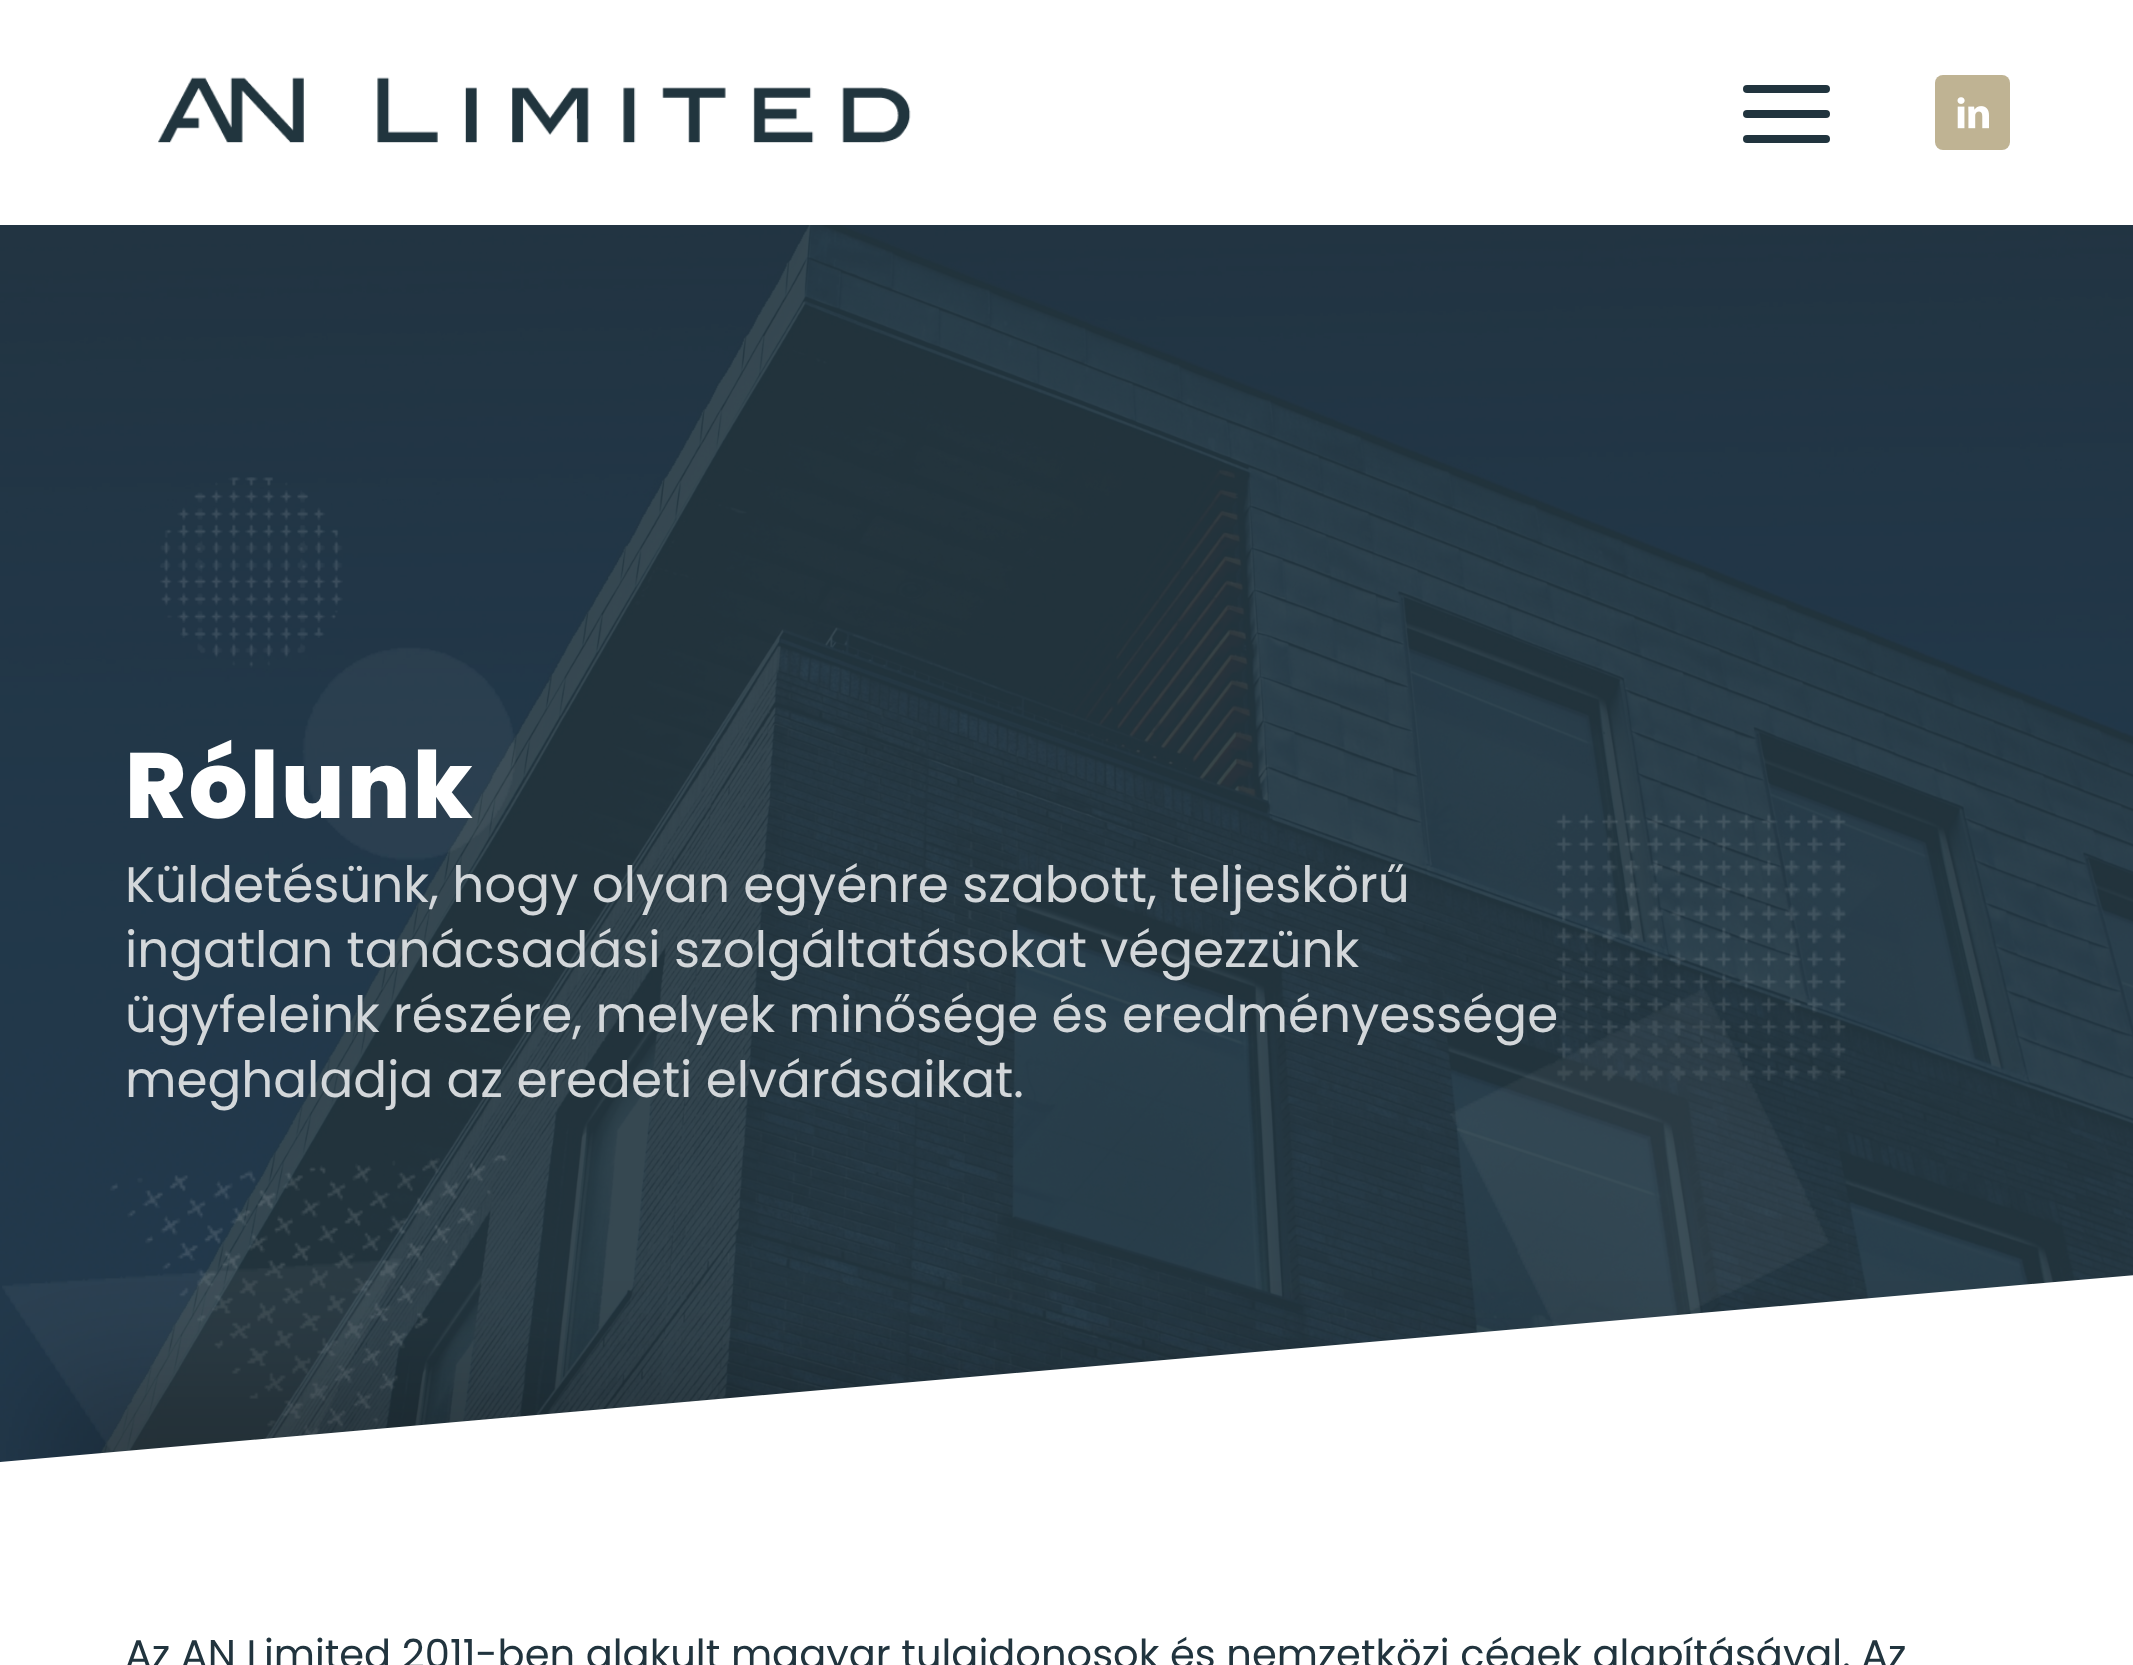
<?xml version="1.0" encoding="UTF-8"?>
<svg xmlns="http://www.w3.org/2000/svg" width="2133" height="1665">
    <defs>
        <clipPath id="clip1"><rect x="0" y="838" width="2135" height="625"/></clipPath>
        <filter id="blur1" x="-50%" y="-200%" width="200%" height="500%"><feGaussianBlur stdDeviation="55"/></filter>
        <clipPath id="clip2"><rect x="0" y="838" width="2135" height="625"/></clipPath>
    </defs>
    <rect width="100%" height="100%" fill="#FFFFFF"/>
    <image x="158" y="77" width="753" height="66" href="img_01.png"/>
    <rect x="1743" y="110" width="87" height="8" rx="4" fill="#21343E"/>
    <rect x="1743" y="85" width="87" height="8" rx="4" fill="#21343E"/>
    <rect x="1743" y="135" width="87" height="8" rx="4" fill="#21343E"/>
    <rect x="1935" y="75" width="75" height="75" rx="8" fill="#BFB393"/>
    <image x="1957" y="97" width="32" height="32" href="img_02.png"/>
    <image x="0" y="225" width="2133" height="1238" href="img_03.png"/>
    <image x="2" y="477" width="1844" height="976" href="img_04.png"/>
    <text x="125" y="818" font-family="Poppins" font-size="92.5" font-weight="800" letter-spacing="2.5" fill="#FFFFFF">Rólunk</text>
    <text font-family="Poppins" font-size="50" fill="#D3D7DA">
        <tspan x="125" y="902">Küldetésünk, hogy olyan egyénre szabott, teljeskörű</tspan>
        <tspan x="125" y="967">ingatlan tanácsadási szolgáltatásokat végezzünk</tspan>
        <tspan x="125" y="1032">ügyfeleink részére, melyek minősége és eredményessége</tspan>
        <tspan x="125" y="1097">meghaladja az eredeti elvárásaikat.</tspan>
    </text>
    <g clip-path="url(#clip1)">
        <rect x="43" y="1378" width="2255" height="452" fill="#000000" fill-opacity="0.2" filter="url(#blur1)"/>
    </g>
    <g clip-path="url(#clip2)">
        <path d="M 0 1462 L 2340 1257 L 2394 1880 L 54 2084 Z" fill="#FFFFFF"/>
    </g>
    <text x="125" y="1668" font-family="Poppins" font-size="40" fill="#21343E">Az AN Limited 2011-ben alakult magyar tulajdonosok és nemzetközi cégek alapításával. Az</text>
</svg>
